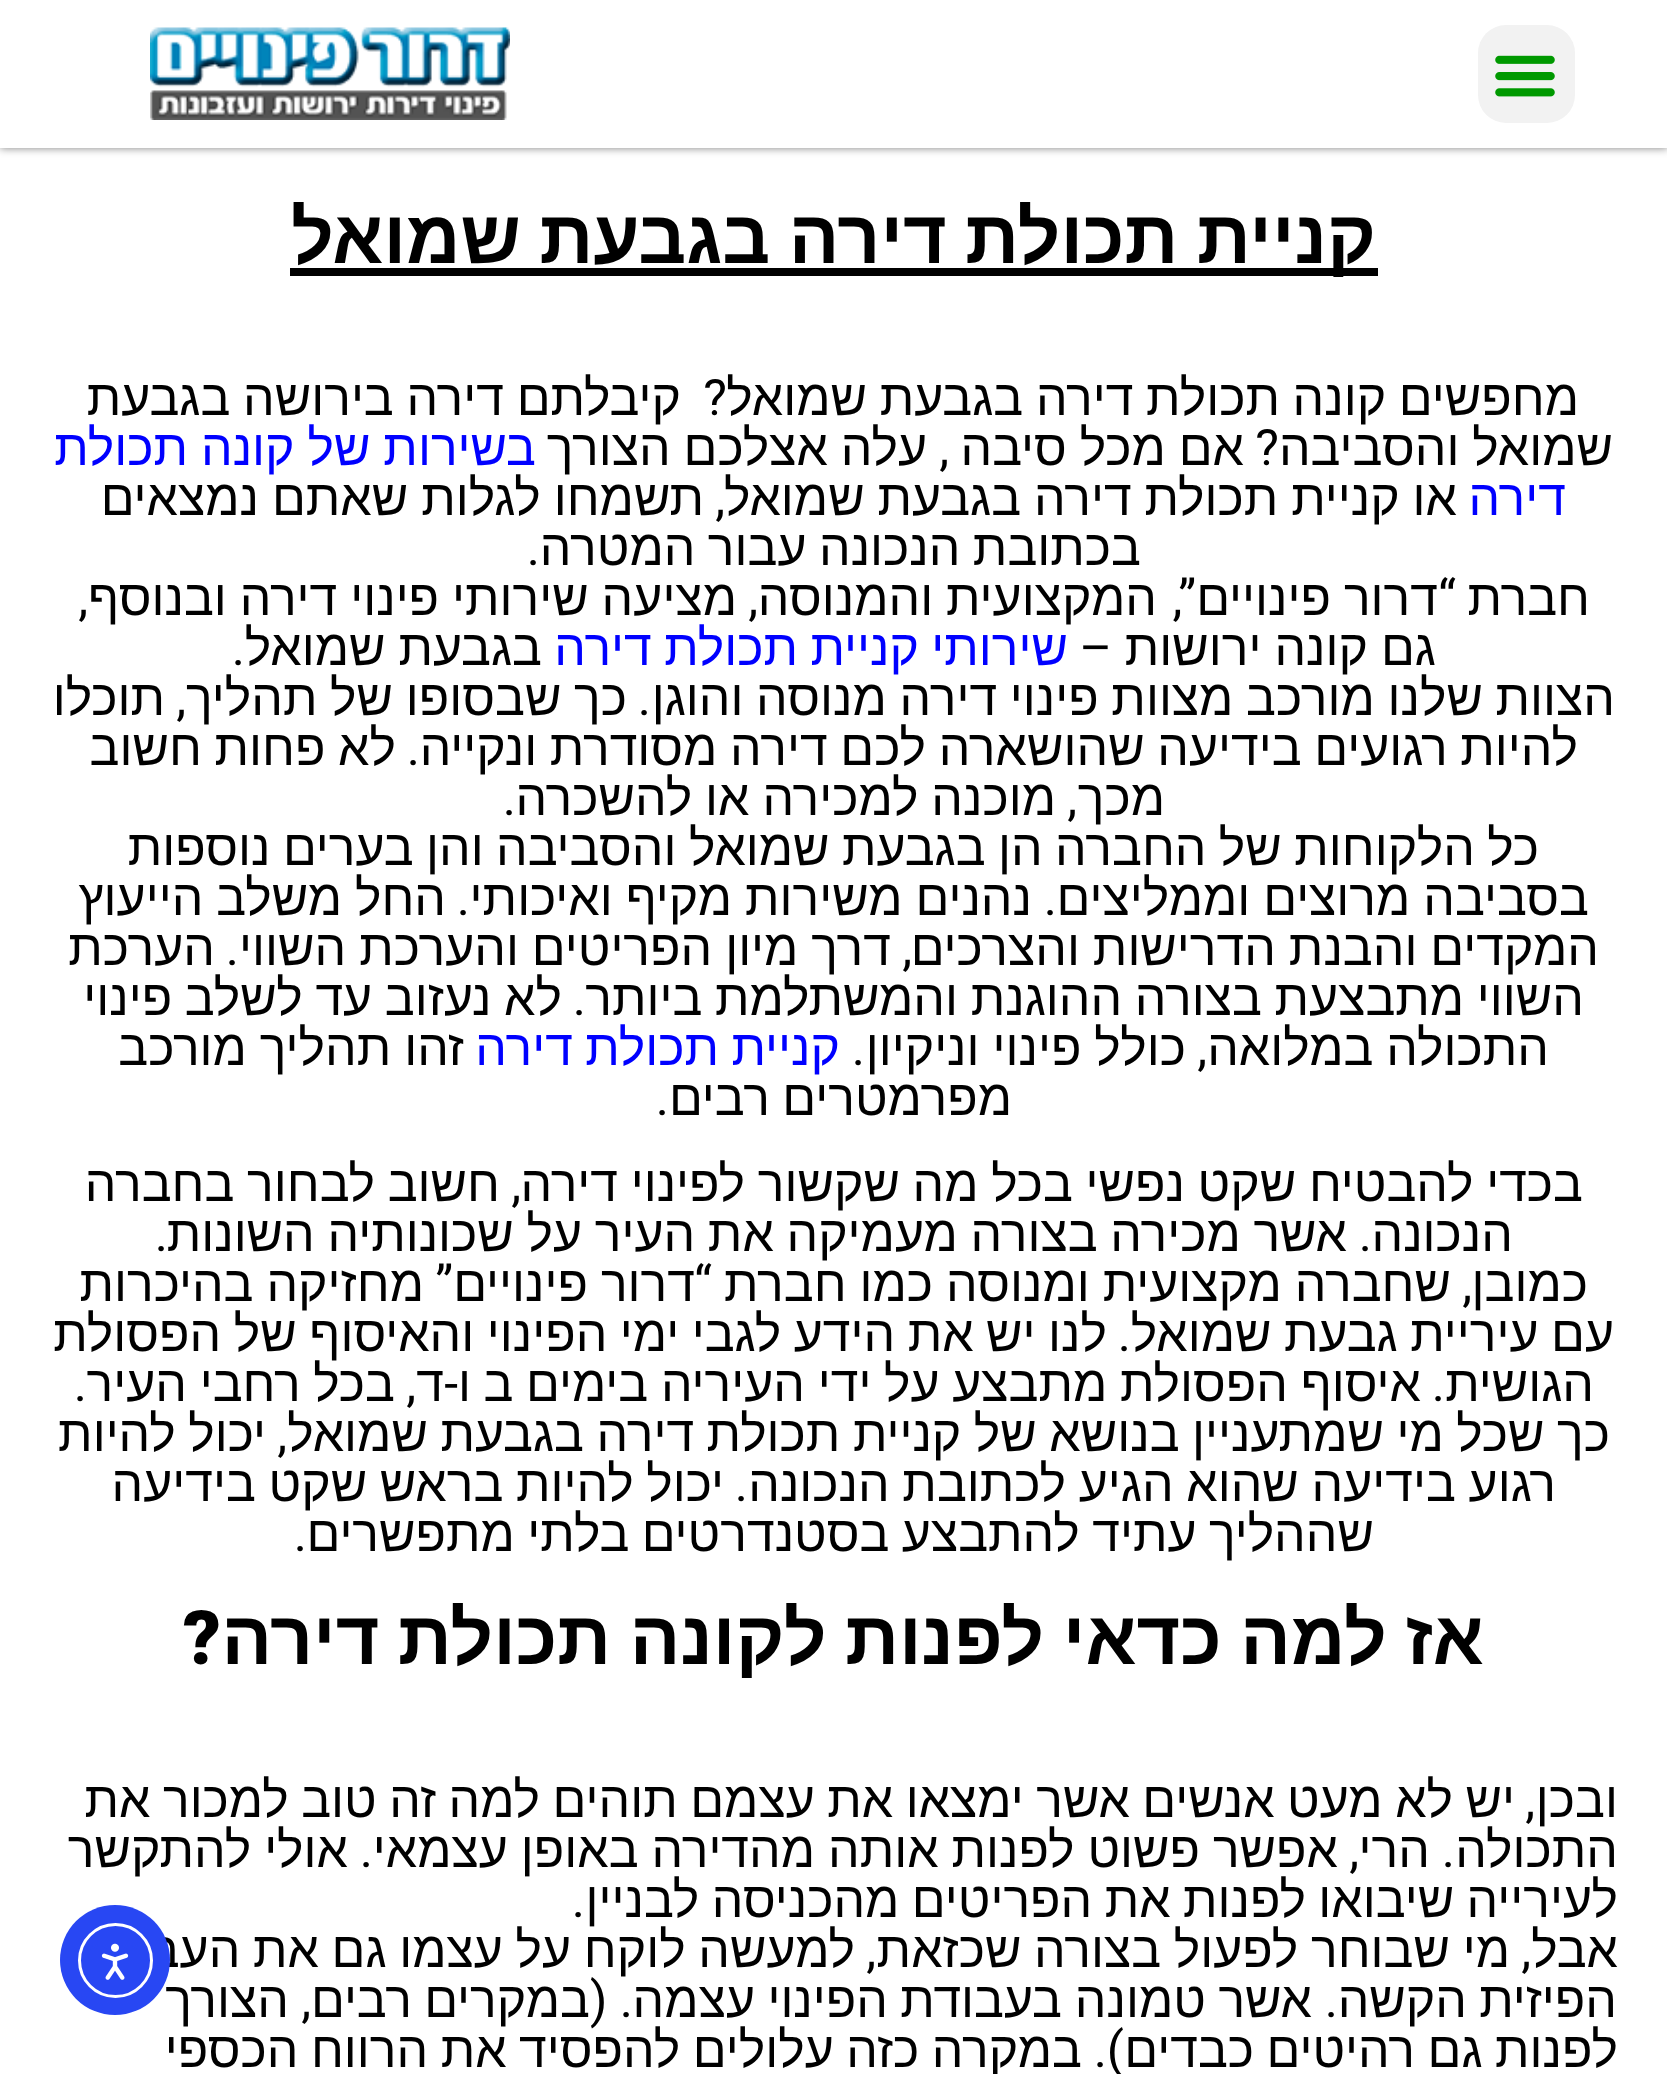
<?xml version="1.0" encoding="UTF-8"?>
<svg xmlns="http://www.w3.org/2000/svg" width="1667" height="2074">
    <defs>
        <filter id="blur1" x="-50%" y="-200%" width="200%" height="500%"><feGaussianBlur stdDeviation="4"/></filter>
    </defs>
    <rect width="100%" height="100%" fill="#FFFFFF"/>
    <rect x="0" y="0" width="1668" height="148" fill="#000000" fill-opacity="0.5" filter="url(#blur1)"/>
    <rect x="0" y="0" width="1667" height="148" fill="#FFFFFF"/>
    <rect x="1478" y="25" width="97" height="98" rx="28" fill="#F2F2F2"/>
    <image x="1495" y="55" width="60" height="42" href="img_01.png"/>
    <image x="150" y="27" width="360" height="93" href="img_02.png"/>
    <rect x="290" y="268" width="1088" height="8" fill="#000000"/>
    <text x="1376" y="263" word-spacing="-2.25" font-family="Liberation Sans" font-size="75" font-weight="700" direction="rtl" fill="#000000">קניית תכולת דירה בגבעת שמואל</text>
    <text x="1579" y="415" word-spacing="-1.25" font-family="Liberation Sans" font-size="50" direction="rtl" fill="#000000">מחפשים קונה תכולת דירה בגבעת שמואל</text>
    <text x="727" y="415" font-family="Roboto" font-size="50" direction="rtl" fill="#000000">?</text>
    <text x="681" y="415" word-spacing="-1.25" font-family="Liberation Sans" font-size="50" direction="rtl" fill="#000000">קיבלתם דירה בירושה בגבעת</text>
    <text x="1613" y="465" word-spacing="-1" font-family="Liberation Sans" font-size="50" direction="rtl" fill="#000000">שמואל והסביבה</text>
    <text x="1279" y="465" font-family="Roboto" font-size="50" direction="rtl" fill="#000000">?</text>
    <text x="1244" y="465" word-spacing="-1" font-family="Liberation Sans" font-size="50" direction="rtl" fill="#000000">אם מכל סיבה</text>
    <text x="949" y="465" font-family="Roboto" font-size="50" direction="rtl" fill="#000000">,</text>
    <text x="927" y="465" word-spacing="-1" font-family="Liberation Sans" font-size="50" direction="rtl" fill="#000000">עלה אצלכם הצורך</text>
    <text x="536" y="465" word-spacing="-1" font-family="Liberation Sans" font-size="50" direction="rtl" fill="#0000FF">בשירות של קונה תכולת</text>
    <text x="1566" y="515" font-family="Liberation Sans" font-size="50" direction="rtl" fill="#0000FF">דירה</text>
    <text x="1457" y="515" word-spacing="-1" font-family="Liberation Sans" font-size="50" direction="rtl" fill="#000000">או קניית תכולת דירה בגבעת שמואל</text>
    <text x="725" y="515" font-family="Roboto" font-size="50" direction="rtl" fill="#000000">,</text>
    <text x="704" y="515" word-spacing="-1" font-family="Liberation Sans" font-size="50" direction="rtl" fill="#000000">תשמחו לגלות שאתם נמצאים</text>
    <text x="1141" y="565" word-spacing="-1.5" font-family="Liberation Sans" font-size="50" direction="rtl" fill="#000000">בכתובת הנכונה עבור המטרה</text>
    <text x="540" y="565" font-family="Roboto" font-size="50" direction="rtl" fill="#000000">.</text>
    <text x="1590" y="615" font-family="Liberation Sans" font-size="50" direction="rtl" fill="#000000">חברת</text>
    <text x="1456" y="615" font-family="Roboto" font-size="50" direction="rtl" fill="#000000">“</text>
    <text x="1438" y="615" word-spacing="-1" font-family="Liberation Sans" font-size="50" direction="rtl" fill="#000000">דרור פינויים</text>
    <text x="1196" y="615" font-family="Roboto" font-size="50" direction="rtl" fill="#000000">”,</text>
    <text x="1157" y="615" word-spacing="-1" font-family="Liberation Sans" font-size="50" direction="rtl" fill="#000000">המקצועית והמנוסה</text>
    <text x="758" y="615" font-family="Roboto" font-size="50" direction="rtl" fill="#000000">,</text>
    <text x="737" y="615" word-spacing="-1" font-family="Liberation Sans" font-size="50" direction="rtl" fill="#000000">מציעה שירותי פינוי דירה ובנוסף</text>
    <text x="88" y="615" font-family="Roboto" font-size="50" direction="rtl" fill="#000000">,</text>
    <text x="1436" y="665" word-spacing="-1" font-family="Liberation Sans" font-size="50" direction="rtl" fill="#000000">גם קונה ירושות</text>
    <text x="1112" y="665" font-family="Roboto" font-size="50" direction="rtl" fill="#000000">–</text>
    <text x="1068" y="665" word-spacing="-1.5" font-family="Liberation Sans" font-size="50" direction="rtl" fill="#0000FF">שירותי קניית תכולת דירה</text>
    <text x="542" y="665" word-spacing="-1" font-family="Liberation Sans" font-size="50" direction="rtl" fill="#000000">בגבעת שמואל</text>
    <text x="245" y="665" font-family="Roboto" font-size="50" direction="rtl" fill="#000000">.</text>
    <text x="1615" y="715" word-spacing="-1.25" font-family="Liberation Sans" font-size="50" direction="rtl" fill="#000000">הצוות שלנו מורכב מצוות פינוי דירה מנוסה והוגן</text>
    <text x="651" y="715" font-family="Roboto" font-size="50" direction="rtl" fill="#000000">.</text>
    <text x="627" y="715" word-spacing="-1.25" font-family="Liberation Sans" font-size="50" direction="rtl" fill="#000000">כך שבסופו של תהליך</text>
    <text x="186" y="715" font-family="Roboto" font-size="50" direction="rtl" fill="#000000">,</text>
    <text x="165" y="715" font-family="Liberation Sans" font-size="50" direction="rtl" fill="#000000">תוכלו</text>
    <text x="1578" y="765" word-spacing="-1.25" font-family="Liberation Sans" font-size="50" direction="rtl" fill="#000000">להיות רגועים בידיעה שהושארה לכם דירה מסודרת ונקייה</text>
    <text x="420" y="765" font-family="Roboto" font-size="50" direction="rtl" fill="#000000">.</text>
    <text x="396" y="765" word-spacing="-1.25" font-family="Liberation Sans" font-size="50" direction="rtl" fill="#000000">לא פחות חשוב</text>
    <text x="1165" y="815" font-family="Liberation Sans" font-size="50" direction="rtl" fill="#000000">מכך</text>
    <text x="1077" y="815" font-family="Roboto" font-size="50" direction="rtl" fill="#000000">,</text>
    <text x="1056" y="815" word-spacing="-1" font-family="Liberation Sans" font-size="50" direction="rtl" fill="#000000">מוכנה למכירה או להשכרה</text>
    <text x="516" y="815" font-family="Roboto" font-size="50" direction="rtl" fill="#000000">.</text>
    <text x="1539" y="865" word-spacing="-1.5" font-family="Liberation Sans" font-size="50" direction="rtl" fill="#000000">כל הלקוחות של החברה הן בגבעת שמואל והסביבה והן בערים נוספות</text>
    <text x="1589" y="915" word-spacing="-1" font-family="Liberation Sans" font-size="50" direction="rtl" fill="#000000">בסביבה מרוצים וממליצים</text>
    <text x="1057" y="915" font-family="Roboto" font-size="50" direction="rtl" fill="#000000">.</text>
    <text x="1032" y="915" word-spacing="-1" font-family="Liberation Sans" font-size="50" direction="rtl" fill="#000000">נהנים משירות מקיף ואיכותי</text>
    <text x="470" y="915" font-family="Roboto" font-size="50" direction="rtl" fill="#000000">.</text>
    <text x="446" y="915" word-spacing="-1" font-family="Liberation Sans" font-size="50" direction="rtl" fill="#000000">החל משלב הייעוץ</text>
    <text x="1599" y="965" word-spacing="-1" font-family="Liberation Sans" font-size="50" direction="rtl" fill="#000000">המקדים והבנת הדרישות והצרכים</text>
    <text x="912" y="965" font-family="Roboto" font-size="50" direction="rtl" fill="#000000">,</text>
    <text x="891" y="965" word-spacing="-1" font-family="Liberation Sans" font-size="50" direction="rtl" fill="#000000">דרך מיון הפריטים והערכת השווי</text>
    <text x="239" y="965" font-family="Roboto" font-size="50" direction="rtl" fill="#000000">.</text>
    <text x="215" y="965" font-family="Liberation Sans" font-size="50" direction="rtl" fill="#000000">הערכת</text>
    <text x="1584" y="1015" word-spacing="-1.25" font-family="Liberation Sans" font-size="50" direction="rtl" fill="#000000">השווי מתבצעת בצורה ההוגנת והמשתלמת ביותר</text>
    <text x="586" y="1015" font-family="Roboto" font-size="50" direction="rtl" fill="#000000">.</text>
    <text x="562" y="1015" word-spacing="-1.25" font-family="Liberation Sans" font-size="50" direction="rtl" fill="#000000">לא נעזוב עד לשלב פינוי</text>
    <text x="1549" y="1065" word-spacing="-1" font-family="Liberation Sans" font-size="50" direction="rtl" fill="#000000">התכולה במלואה</text>
    <text x="1207" y="1065" font-family="Roboto" font-size="50" direction="rtl" fill="#000000">,</text>
    <text x="1186" y="1065" word-spacing="-1" font-family="Liberation Sans" font-size="50" direction="rtl" fill="#000000">כולל פינוי וניקיון</text>
    <text x="865" y="1065" font-family="Roboto" font-size="50" direction="rtl" fill="#000000">.</text>
    <text x="840" y="1065" word-spacing="-1.5" font-family="Liberation Sans" font-size="50" direction="rtl" fill="#0000FF">קניית תכולת דירה</text>
    <text x="464" y="1065" word-spacing="-1" font-family="Liberation Sans" font-size="50" direction="rtl" fill="#000000">זהו תהליך מורכב</text>
    <text x="1012" y="1115" word-spacing="-1.5" font-family="Liberation Sans" font-size="50" direction="rtl" fill="#000000">מפרמטרים רבים</text>
    <text x="669" y="1115" font-family="Roboto" font-size="50" direction="rtl" fill="#000000">.</text>
    <text x="1583" y="1201" word-spacing="-1.25" font-family="Liberation Sans" font-size="50" direction="rtl" fill="#000000">בכדי להבטיח שקט נפשי בכל מה שקשור לפינוי דירה</text>
    <text x="521" y="1201" font-family="Roboto" font-size="50" direction="rtl" fill="#000000">,</text>
    <text x="500" y="1201" word-spacing="-1.25" font-family="Liberation Sans" font-size="50" direction="rtl" fill="#000000">חשוב לבחור בחברה</text>
    <text x="1513" y="1251" font-family="Liberation Sans" font-size="50" direction="rtl" fill="#000000">הנכונה</text>
    <text x="1372" y="1251" font-family="Roboto" font-size="50" direction="rtl" fill="#000000">.</text>
    <text x="1347" y="1251" word-spacing="-1.25" font-family="Liberation Sans" font-size="50" direction="rtl" fill="#000000">אשר מכירה בצורה מעמיקה את העיר על שכונותיה השונות</text>
    <text x="168" y="1251" font-family="Roboto" font-size="50" direction="rtl" fill="#000000">.</text>
    <text x="1588" y="1301" font-family="Liberation Sans" font-size="50" direction="rtl" fill="#000000">כמובן</text>
    <text x="1472" y="1301" font-family="Roboto" font-size="50" direction="rtl" fill="#000000">,</text>
    <text x="1451" y="1301" word-spacing="-1" font-family="Liberation Sans" font-size="50" direction="rtl" fill="#000000">שחברה מקצועית ומנוסה כמו חברת</text>
    <text x="712" y="1301" font-family="Roboto" font-size="50" direction="rtl" fill="#000000">“</text>
    <text x="695" y="1301" word-spacing="-1" font-family="Liberation Sans" font-size="50" direction="rtl" fill="#000000">דרור פינויים</text>
    <text x="453" y="1301" font-family="Roboto" font-size="50" direction="rtl" fill="#000000">”</text>
    <text x="424" y="1301" word-spacing="-1" font-family="Liberation Sans" font-size="50" direction="rtl" fill="#000000">מחזיקה בהיכרות</text>
    <text x="1614" y="1351" word-spacing="-1.4" font-family="Liberation Sans" font-size="50" direction="rtl" fill="#000000">עם עיריית גבעת שמואל</text>
    <text x="1131" y="1351" font-family="Roboto" font-size="50" direction="rtl" fill="#000000">.</text>
    <text x="1107" y="1351" word-spacing="-1.4" font-family="Liberation Sans" font-size="50" direction="rtl" fill="#000000">לנו יש את הידע לגבי ימי הפינוי והאיסוף של הפסולת</text>
    <text x="1594" y="1401" font-family="Liberation Sans" font-size="50" direction="rtl" fill="#000000">הגושית</text>
    <text x="1421" y="1401" word-spacing="-1.25" font-family="Liberation Sans" font-size="50" direction="rtl" fill="#000000">איסוף הפסולת מתבצע על ידי העיריה בימים ב ו</text>
    <text x="458" y="1401" font-family="Roboto" font-size="50" direction="rtl" fill="#000000">-</text>
    <text x="444" y="1401" font-family="Liberation Sans" font-size="50" direction="rtl" fill="#000000">ד</text>
    <text x="395" y="1401" word-spacing="-1.25" font-family="Liberation Sans" font-size="50" direction="rtl" fill="#000000">בכל רחבי העיר</text>
    <text x="1445" y="1401" font-family="Roboto" font-size="50" direction="rtl" fill="#000000">.</text>
    <text x="416" y="1401" font-family="Roboto" font-size="50" direction="rtl" fill="#000000">,</text>
    <text x="87" y="1401" font-family="Roboto" font-size="50" direction="rtl" fill="#000000">.</text>
    <text x="1610" y="1451" word-spacing="-1.4" font-family="Liberation Sans" font-size="50" direction="rtl" fill="#000000">כך שכל מי שמתעניין בנושא של קניית תכולת דירה בגבעת שמואל</text>
    <text x="287" y="1451" font-family="Roboto" font-size="50" direction="rtl" fill="#000000">,</text>
    <text x="266" y="1451" word-spacing="-1.4" font-family="Liberation Sans" font-size="50" direction="rtl" fill="#000000">יכול להיות</text>
    <text x="1556" y="1501" word-spacing="-1.25" font-family="Liberation Sans" font-size="50" direction="rtl" fill="#000000">רגוע בידיעה שהוא הגיע לכתובת הנכונה</text>
    <text x="748" y="1501" font-family="Roboto" font-size="50" direction="rtl" fill="#000000">.</text>
    <text x="724" y="1501" word-spacing="-1.25" font-family="Liberation Sans" font-size="50" direction="rtl" fill="#000000">יכול להיות בראש שקט בידיעה</text>
    <text x="1374" y="1551" word-spacing="-1.5" font-family="Liberation Sans" font-size="50" direction="rtl" fill="#000000">שההליך עתיד להתבצע בסטנדרטים בלתי מתפשרים</text>
    <text x="307" y="1551" font-family="Roboto" font-size="50" direction="rtl" fill="#000000">.</text>
    <text x="1484" y="1664" word-spacing="-2.25" font-family="Liberation Sans" font-size="75" font-weight="700" direction="rtl" fill="#000000">אז למה כדאי לפנות לקונה תכולת דירה</text>
    <text x="221" y="1664" font-family="Roboto" font-size="75" font-weight="900" direction="rtl" fill="#000000">?</text>
    <text x="1618" y="1817" font-family="Liberation Sans" font-size="50" direction="rtl" fill="#000000">ובכן</text>
    <text x="1515" y="1817" word-spacing="-1.4" font-family="Liberation Sans" font-size="50" direction="rtl" fill="#000000">יש לא מעט אנשים אשר ימצאו את עצמם תוהים למה זה טוב למכור את</text>
    <text x="1535" y="1817" font-family="Roboto" font-size="50" direction="rtl" fill="#000000">,</text>
    <text x="1618" y="1867" font-family="Liberation Sans" font-size="50" direction="rtl" fill="#000000">התכולה</text>
    <text x="1455" y="1867" font-family="Roboto" font-size="50" direction="rtl" fill="#000000">.</text>
    <text x="1430" y="1867" font-family="Liberation Sans" font-size="50" direction="rtl" fill="#000000">הרי</text>
    <text x="1359" y="1867" font-family="Roboto" font-size="50" direction="rtl" fill="#000000">,</text>
    <text x="1338" y="1867" word-spacing="-1" font-family="Liberation Sans" font-size="50" direction="rtl" fill="#000000">אפשר פשוט לפנות אותה מהדירה באופן עצמאי</text>
    <text x="373" y="1867" font-family="Roboto" font-size="50" direction="rtl" fill="#000000">.</text>
    <text x="348" y="1867" word-spacing="-1" font-family="Liberation Sans" font-size="50" direction="rtl" fill="#000000">אולי להתקשר</text>
    <text x="1618" y="1917" word-spacing="-1.5" font-family="Liberation Sans" font-size="50" direction="rtl" fill="#000000">לעירייה שיבואו לפנות את הפריטים מהכניסה לבניין</text>
    <text x="585" y="1917" font-family="Roboto" font-size="50" direction="rtl" fill="#000000">.</text>
    <text x="1618" y="1967" font-family="Liberation Sans" font-size="50" direction="rtl" fill="#000000">אבל</text>
    <text x="1531" y="1967" font-family="Roboto" font-size="50" direction="rtl" fill="#000000">,</text>
    <text x="1510" y="1967" word-spacing="-1.25" font-family="Liberation Sans" font-size="50" direction="rtl" fill="#000000">מי שבוחר לפעול בצורה שכזאת</text>
    <text x="876" y="1967" font-family="Roboto" font-size="50" direction="rtl" fill="#000000">,</text>
    <text x="855" y="1967" word-spacing="-1.25" font-family="Liberation Sans" font-size="50" direction="rtl" fill="#000000">למעשה לוקח על עצמו גם את העבודה</text>
    <text x="1617" y="2017" font-family="Liberation Sans" font-size="50" direction="rtl" fill="#000000">הפיזית</text>
    <text x="1467" y="2017" font-family="Liberation Sans" font-size="50" direction="rtl" fill="#000000">הקשה</text>
    <text x="1338" y="2017" font-family="Roboto" font-size="50" direction="rtl" fill="#000000">.</text>
    <text x="1312" y="2017" font-family="Liberation Sans" font-size="50" direction="rtl" fill="#000000">אשר</text>
    <text x="1206" y="2017" font-family="Liberation Sans" font-size="50" direction="rtl" fill="#000000">טמונה</text>
    <text x="1062" y="2017" font-family="Liberation Sans" font-size="50" direction="rtl" fill="#000000">בעבודת</text>
    <text x="888" y="2017" font-family="Liberation Sans" font-size="50" direction="rtl" fill="#000000">הפינוי</text>
    <text x="755" y="2017" font-family="Liberation Sans" font-size="50" direction="rtl" fill="#000000">עצמה</text>
    <text x="633" y="2017" font-family="Roboto" font-size="50" direction="rtl" fill="#000000">. (</text>
    <text x="590" y="2017" font-family="Liberation Sans" font-size="50" direction="rtl" fill="#000000">במקרים</text>
    <text x="412" y="2017" font-family="Liberation Sans" font-size="50" direction="rtl" fill="#000000">רבים</text>
    <text x="311" y="2017" font-family="Roboto" font-size="50" direction="rtl" fill="#000000">,</text>
    <text x="289" y="2017" font-family="Liberation Sans" font-size="50" direction="rtl" fill="#000000">הצורך</text>
    <text x="1618" y="2067" word-spacing="-1.4" font-family="Liberation Sans" font-size="50" direction="rtl" fill="#000000">לפנות גם רהיטים כבדים</text>
    <text x="1124" y="2067" font-family="Roboto" font-size="50" direction="rtl" fill="#000000">).</text>
    <text x="1082" y="2067" word-spacing="-1.4" font-family="Liberation Sans" font-size="50" direction="rtl" fill="#000000">במקרה כזה עלולים להפסיד את הרווח הכספי</text>
    <circle cx="115" cy="1960" r="55" fill="#2847F3"/>
    <circle cx="115.5" cy="1960.5" r="36" fill="none" stroke="#FFFFFF" stroke-width="3"/>
    <image x="101" y="1943" width="28" height="37" href="img_03.png"/>
</svg>
